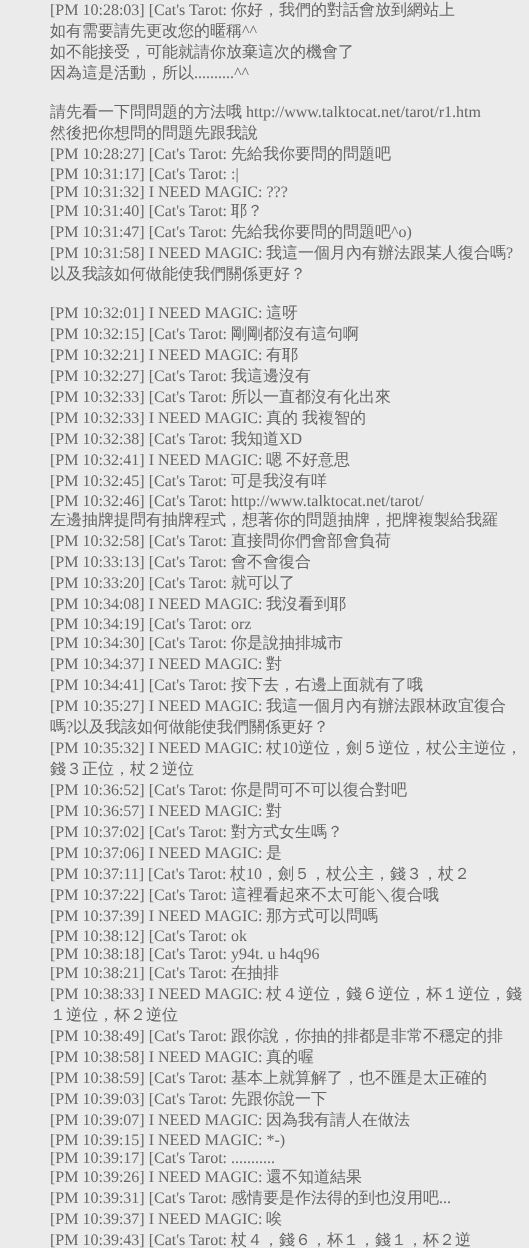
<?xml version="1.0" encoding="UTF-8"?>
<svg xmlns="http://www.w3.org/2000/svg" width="529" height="1248">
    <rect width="100%" height="100%" fill="#EBEBEB"/>
    <text x="50" y="15" font-family="Liberation Serif" font-size="16" fill="#666666">[PM 10:28:03] [Cat's Tarot:</text>
    <text x="231" y="15" font-family="WenQuanYi Zen Hei" font-size="16" font-weight="500" fill="#666666">你好，我們的對話會放到網站上</text>
    <text x="50" y="36" font-family="WenQuanYi Zen Hei" font-size="16" font-weight="500" fill="#666666">如有需要請先更改您的暱稱</text>
    <text x="242" y="36" font-family="Liberation Serif" font-size="16" fill="#666666">^^</text>
    <text font-family="WenQuanYi Zen Hei" font-size="16" font-weight="500" fill="#666666">
        <tspan x="50" y="57">如不能接受，可能就請你放棄這次的機會了</tspan>
        <tspan x="50" y="78">因為這是活動，所以</tspan>
    </text>
    <text x="194" y="78" font-family="Liberation Serif" font-size="16" fill="#666666">..........^^</text>
    <text x="50" y="117" font-family="WenQuanYi Zen Hei" font-size="16" font-weight="500" fill="#666666">請先看一下問問題的方法哦</text>
    <text x="246" y="117" font-family="Liberation Serif" font-size="16" fill="#666666">http://www.talktocat.net/tarot/r1.htm</text>
    <text x="50" y="138" font-family="WenQuanYi Zen Hei" font-size="16" font-weight="500" fill="#666666">然後把你想問的問題先跟我說</text>
    <text x="50" y="159" font-family="Liberation Serif" font-size="16" fill="#666666">[PM 10:28:27] [Cat's Tarot:</text>
    <text x="231" y="159" font-family="WenQuanYi Zen Hei" font-size="16" font-weight="500" fill="#666666">先給我你要問的問題吧</text>
    <text font-family="Liberation Serif" font-size="16" fill="#666666">
        <tspan x="50" y="179">[PM 10:31:17] [Cat's Tarot: :|</tspan>
        <tspan x="50" y="197">[PM 10:31:32] I NEED MAGIC: ???</tspan>
        <tspan x="50" y="216">[PM 10:31:40] [Cat's Tarot:</tspan>
    </text>
    <text x="231" y="216" font-family="WenQuanYi Zen Hei" font-size="16" font-weight="500" fill="#666666">耶？</text>
    <text x="50" y="237" font-family="Liberation Serif" font-size="16" fill="#666666">[PM 10:31:47] [Cat's Tarot:</text>
    <text x="231" y="237" font-family="WenQuanYi Zen Hei" font-size="16" font-weight="500" fill="#666666">先給我你要問的問題吧</text>
    <text x="391" y="237" font-family="Liberation Serif" font-size="16" fill="#666666">^o)</text>
    <text x="50" y="258" font-family="Liberation Serif" font-size="16" fill="#666666">[PM 10:31:58] I NEED MAGIC:</text>
    <text x="266" y="258" font-family="WenQuanYi Zen Hei" font-size="16" font-weight="500" fill="#666666">我這一個月內有辦法跟某人復合嗎</text>
    <text x="506" y="258" font-family="Liberation Serif" font-size="16" fill="#666666">?</text>
    <text x="50" y="279" font-family="WenQuanYi Zen Hei" font-size="16" font-weight="500" fill="#666666">以及我該如何做能使我們關係更好？</text>
    <text x="50" y="318" font-family="Liberation Serif" font-size="16" fill="#666666">[PM 10:32:01] I NEED MAGIC:</text>
    <text x="266" y="318" font-family="WenQuanYi Zen Hei" font-size="16" font-weight="500" fill="#666666">這呀</text>
    <text x="50" y="339" font-family="Liberation Serif" font-size="16" fill="#666666">[PM 10:32:15] [Cat's Tarot:</text>
    <text x="231" y="339" font-family="WenQuanYi Zen Hei" font-size="16" font-weight="500" fill="#666666">剛剛都沒有這句啊</text>
    <text x="50" y="360" font-family="Liberation Serif" font-size="16" fill="#666666">[PM 10:32:21] I NEED MAGIC:</text>
    <text x="266" y="360" font-family="WenQuanYi Zen Hei" font-size="16" font-weight="500" fill="#666666">有耶</text>
    <text x="50" y="381" font-family="Liberation Serif" font-size="16" fill="#666666">[PM 10:32:27] [Cat's Tarot:</text>
    <text x="231" y="381" font-family="WenQuanYi Zen Hei" font-size="16" font-weight="500" fill="#666666">我這邊沒有</text>
    <text x="50" y="402" font-family="Liberation Serif" font-size="16" fill="#666666">[PM 10:32:33] [Cat's Tarot:</text>
    <text x="231" y="402" font-family="WenQuanYi Zen Hei" font-size="16" font-weight="500" fill="#666666">所以一直都沒有化出來</text>
    <text x="50" y="423" font-family="Liberation Serif" font-size="16" fill="#666666">[PM 10:32:33] I NEED MAGIC:</text>
    <text x="266" y="423" font-family="WenQuanYi Zen Hei" font-size="16" font-weight="500" fill="#666666">真的</text>
    <text x="302" y="423" font-family="WenQuanYi Zen Hei" font-size="16" font-weight="500" fill="#666666">我複智的</text>
    <text x="50" y="444" font-family="Liberation Serif" font-size="16" fill="#666666">[PM 10:32:38] [Cat's Tarot:</text>
    <text x="231" y="444" font-family="WenQuanYi Zen Hei" font-size="16" font-weight="500" fill="#666666">我知道</text>
    <text x="279" y="444" font-family="Liberation Serif" font-size="16" fill="#666666">XD</text>
    <text x="50" y="465" font-family="Liberation Serif" font-size="16" fill="#666666">[PM 10:32:41] I NEED MAGIC:</text>
    <text x="266" y="465" font-family="WenQuanYi Zen Hei" font-size="16" font-weight="500" fill="#666666">嗯</text>
    <text x="286" y="465" font-family="WenQuanYi Zen Hei" font-size="16" font-weight="500" fill="#666666">不好意思</text>
    <text x="50" y="486" font-family="Liberation Serif" font-size="16" fill="#666666">[PM 10:32:45] [Cat's Tarot:</text>
    <text x="231" y="486" font-family="WenQuanYi Zen Hei" font-size="16" font-weight="500" fill="#666666">可是我沒有咩</text>
    <text x="50" y="506" font-family="Liberation Serif" font-size="16" fill="#666666">[PM 10:32:46] [Cat's Tarot: http://www.talktocat.net/tarot/</text>
    <text x="50" y="525" font-family="WenQuanYi Zen Hei" font-size="16" font-weight="500" fill="#666666">左邊抽牌提問有抽牌程式，想著你的問題抽牌，把牌複製給我羅</text>
    <text x="50" y="546" font-family="Liberation Serif" font-size="16" fill="#666666">[PM 10:32:58] [Cat's Tarot:</text>
    <text x="231" y="546" font-family="WenQuanYi Zen Hei" font-size="16" font-weight="500" fill="#666666">直接問你們會部會負荷</text>
    <text x="50" y="567" font-family="Liberation Serif" font-size="16" fill="#666666">[PM 10:33:13] [Cat's Tarot:</text>
    <text x="231" y="567" font-family="WenQuanYi Zen Hei" font-size="16" font-weight="500" fill="#666666">會不會復合</text>
    <text x="50" y="588" font-family="Liberation Serif" font-size="16" fill="#666666">[PM 10:33:20] [Cat's Tarot:</text>
    <text x="231" y="588" font-family="WenQuanYi Zen Hei" font-size="16" font-weight="500" fill="#666666">就可以了</text>
    <text x="50" y="609" font-family="Liberation Serif" font-size="16" fill="#666666">[PM 10:34:08] I NEED MAGIC:</text>
    <text x="266" y="609" font-family="WenQuanYi Zen Hei" font-size="16" font-weight="500" fill="#666666">我沒看到耶</text>
    <text font-family="Liberation Serif" font-size="16" fill="#666666">
        <tspan x="50" y="629">[PM 10:34:19] [Cat's Tarot: orz</tspan>
        <tspan x="50" y="648">[PM 10:34:30] [Cat's Tarot:</tspan>
    </text>
    <text x="231" y="648" font-family="WenQuanYi Zen Hei" font-size="16" font-weight="500" fill="#666666">你是說抽排城市</text>
    <text x="50" y="669" font-family="Liberation Serif" font-size="16" fill="#666666">[PM 10:34:37] I NEED MAGIC:</text>
    <text x="266" y="669" font-family="WenQuanYi Zen Hei" font-size="16" font-weight="500" fill="#666666">對</text>
    <text x="50" y="690" font-family="Liberation Serif" font-size="16" fill="#666666">[PM 10:34:41] [Cat's Tarot:</text>
    <text x="231" y="690" font-family="WenQuanYi Zen Hei" font-size="16" font-weight="500" fill="#666666">按下去，右邊上面就有了哦</text>
    <text x="50" y="711" font-family="Liberation Serif" font-size="16" fill="#666666">[PM 10:35:27] I NEED MAGIC:</text>
    <text x="266" y="711" font-family="WenQuanYi Zen Hei" font-size="16" font-weight="500" fill="#666666">我這一個月內有辦法跟林政宜復合</text>
    <text x="50" y="732" font-family="WenQuanYi Zen Hei" font-size="16" font-weight="500" fill="#666666">嗎</text>
    <text x="66" y="732" font-family="Liberation Serif" font-size="16" fill="#666666">?</text>
    <text x="73" y="732" font-family="WenQuanYi Zen Hei" font-size="16" font-weight="500" fill="#666666">以及我該如何做能使我們關係更好？</text>
    <text x="50" y="753" font-family="Liberation Serif" font-size="16" fill="#666666">[PM 10:35:32] I NEED MAGIC:</text>
    <text x="266" y="753" font-family="WenQuanYi Zen Hei" font-size="16" font-weight="500" fill="#666666">杖</text>
    <text x="282" y="753" font-family="Liberation Serif" font-size="16" fill="#666666">10</text>
    <text x="298" y="753" font-family="WenQuanYi Zen Hei" font-size="16" font-weight="500" fill="#666666">逆位，劍５逆位，杖公主逆位，</text>
    <text x="50" y="774" font-family="WenQuanYi Zen Hei" font-size="16" font-weight="500" fill="#666666">錢３正位，杖２逆位</text>
    <text x="50" y="795" font-family="Liberation Serif" font-size="16" fill="#666666">[PM 10:36:52] [Cat's Tarot:</text>
    <text x="231" y="795" font-family="WenQuanYi Zen Hei" font-size="16" font-weight="500" fill="#666666">你是問可不可以復合對吧</text>
    <text x="50" y="816" font-family="Liberation Serif" font-size="16" fill="#666666">[PM 10:36:57] I NEED MAGIC:</text>
    <text x="266" y="816" font-family="WenQuanYi Zen Hei" font-size="16" font-weight="500" fill="#666666">對</text>
    <text x="50" y="837" font-family="Liberation Serif" font-size="16" fill="#666666">[PM 10:37:02] [Cat's Tarot:</text>
    <text x="231" y="837" font-family="WenQuanYi Zen Hei" font-size="16" font-weight="500" fill="#666666">對方式女生嗎？</text>
    <text x="50" y="858" font-family="Liberation Serif" font-size="16" fill="#666666">[PM 10:37:06] I NEED MAGIC:</text>
    <text x="266" y="858" font-family="WenQuanYi Zen Hei" font-size="16" font-weight="500" fill="#666666">是</text>
    <text x="50" y="879" font-family="Liberation Serif" font-size="16" fill="#666666">[PM 10:37:11] [Cat's Tarot:</text>
    <text x="230" y="879" font-family="WenQuanYi Zen Hei" font-size="16" font-weight="500" fill="#666666">杖</text>
    <text x="246" y="879" font-family="Liberation Serif" font-size="16" fill="#666666">10</text>
    <text x="262" y="879" font-family="WenQuanYi Zen Hei" font-size="16" font-weight="500" fill="#666666">，劍５，杖公主，錢３，杖２</text>
    <text x="50" y="900" font-family="Liberation Serif" font-size="16" fill="#666666">[PM 10:37:22] [Cat's Tarot:</text>
    <text x="231" y="900" font-family="WenQuanYi Zen Hei" font-size="16" font-weight="500" fill="#666666">這裡看起來不太可能＼復合哦</text>
    <text x="50" y="921" font-family="Liberation Serif" font-size="16" fill="#666666">[PM 10:37:39] I NEED MAGIC:</text>
    <text x="266" y="921" font-family="WenQuanYi Zen Hei" font-size="16" font-weight="500" fill="#666666">那方式可以問嗎</text>
    <text font-family="Liberation Serif" font-size="16" fill="#666666">
        <tspan x="50" y="941">[PM 10:38:12] [Cat's Tarot: ok</tspan>
        <tspan x="50" y="959">[PM 10:38:18] [Cat's Tarot: y94t. u h4q96</tspan>
        <tspan x="50" y="978">[PM 10:38:21] [Cat's Tarot:</tspan>
    </text>
    <text x="231" y="978" font-family="WenQuanYi Zen Hei" font-size="16" font-weight="500" fill="#666666">在抽排</text>
    <text x="50" y="999" font-family="Liberation Serif" font-size="16" fill="#666666">[PM 10:38:33] I NEED MAGIC:</text>
    <text x="266" y="999" font-family="WenQuanYi Zen Hei" font-size="16" font-weight="500" fill="#666666">杖４逆位，錢６逆位，杯１逆位，錢</text>
    <text x="50" y="1020" font-family="WenQuanYi Zen Hei" font-size="16" font-weight="500" fill="#666666">１逆位，杯２逆位</text>
    <text x="50" y="1041" font-family="Liberation Serif" font-size="16" fill="#666666">[PM 10:38:49] [Cat's Tarot:</text>
    <text x="231" y="1041" font-family="WenQuanYi Zen Hei" font-size="16" font-weight="500" fill="#666666">跟你說，你抽的排都是非常不穩定的排</text>
    <text x="50" y="1062" font-family="Liberation Serif" font-size="16" fill="#666666">[PM 10:38:58] I NEED MAGIC:</text>
    <text x="266" y="1062" font-family="WenQuanYi Zen Hei" font-size="16" font-weight="500" fill="#666666">真的喔</text>
    <text x="50" y="1083" font-family="Liberation Serif" font-size="16" fill="#666666">[PM 10:38:59] [Cat's Tarot:</text>
    <text x="231" y="1083" font-family="WenQuanYi Zen Hei" font-size="16" font-weight="500" fill="#666666">基本上就算解了，也不匯是太正確的</text>
    <text x="50" y="1104" font-family="Liberation Serif" font-size="16" fill="#666666">[PM 10:39:03] [Cat's Tarot:</text>
    <text x="231" y="1104" font-family="WenQuanYi Zen Hei" font-size="16" font-weight="500" fill="#666666">先跟你說一下</text>
    <text x="50" y="1125" font-family="Liberation Serif" font-size="16" fill="#666666">[PM 10:39:07] I NEED MAGIC:</text>
    <text x="266" y="1125" font-family="WenQuanYi Zen Hei" font-size="16" font-weight="500" fill="#666666">因為我有請人在做法</text>
    <text font-family="Liberation Serif" font-size="16" fill="#666666">
        <tspan x="50" y="1145">[PM 10:39:15] I NEED MAGIC: *-)</tspan>
        <tspan x="50" y="1163">[PM 10:39:17] [Cat's Tarot: ...........</tspan>
        <tspan x="50" y="1182">[PM 10:39:26] I NEED MAGIC:</tspan>
    </text>
    <text x="266" y="1182" font-family="WenQuanYi Zen Hei" font-size="16" font-weight="500" fill="#666666">還不知道結果</text>
    <text x="50" y="1203" font-family="Liberation Serif" font-size="16" fill="#666666">[PM 10:39:31] [Cat's Tarot:</text>
    <text x="231" y="1203" font-family="WenQuanYi Zen Hei" font-size="16" font-weight="500" fill="#666666">感情要是作法得的到也沒用吧</text>
    <text x="439" y="1203" font-family="Liberation Serif" font-size="16" fill="#666666">...</text>
    <text x="50" y="1224" font-family="Liberation Serif" font-size="16" fill="#666666">[PM 10:39:37] I NEED MAGIC:</text>
    <text x="266" y="1224" font-family="WenQuanYi Zen Hei" font-size="16" font-weight="500" fill="#666666">唉</text>
    <text x="50" y="1245" font-family="Liberation Serif" font-size="16" fill="#666666">[PM 10:39:43] [Cat's Tarot:</text>
    <text x="231" y="1245" font-family="WenQuanYi Zen Hei" font-size="16" font-weight="500" fill="#666666">杖４，錢６，杯１，錢１，杯２逆</text>
</svg>
